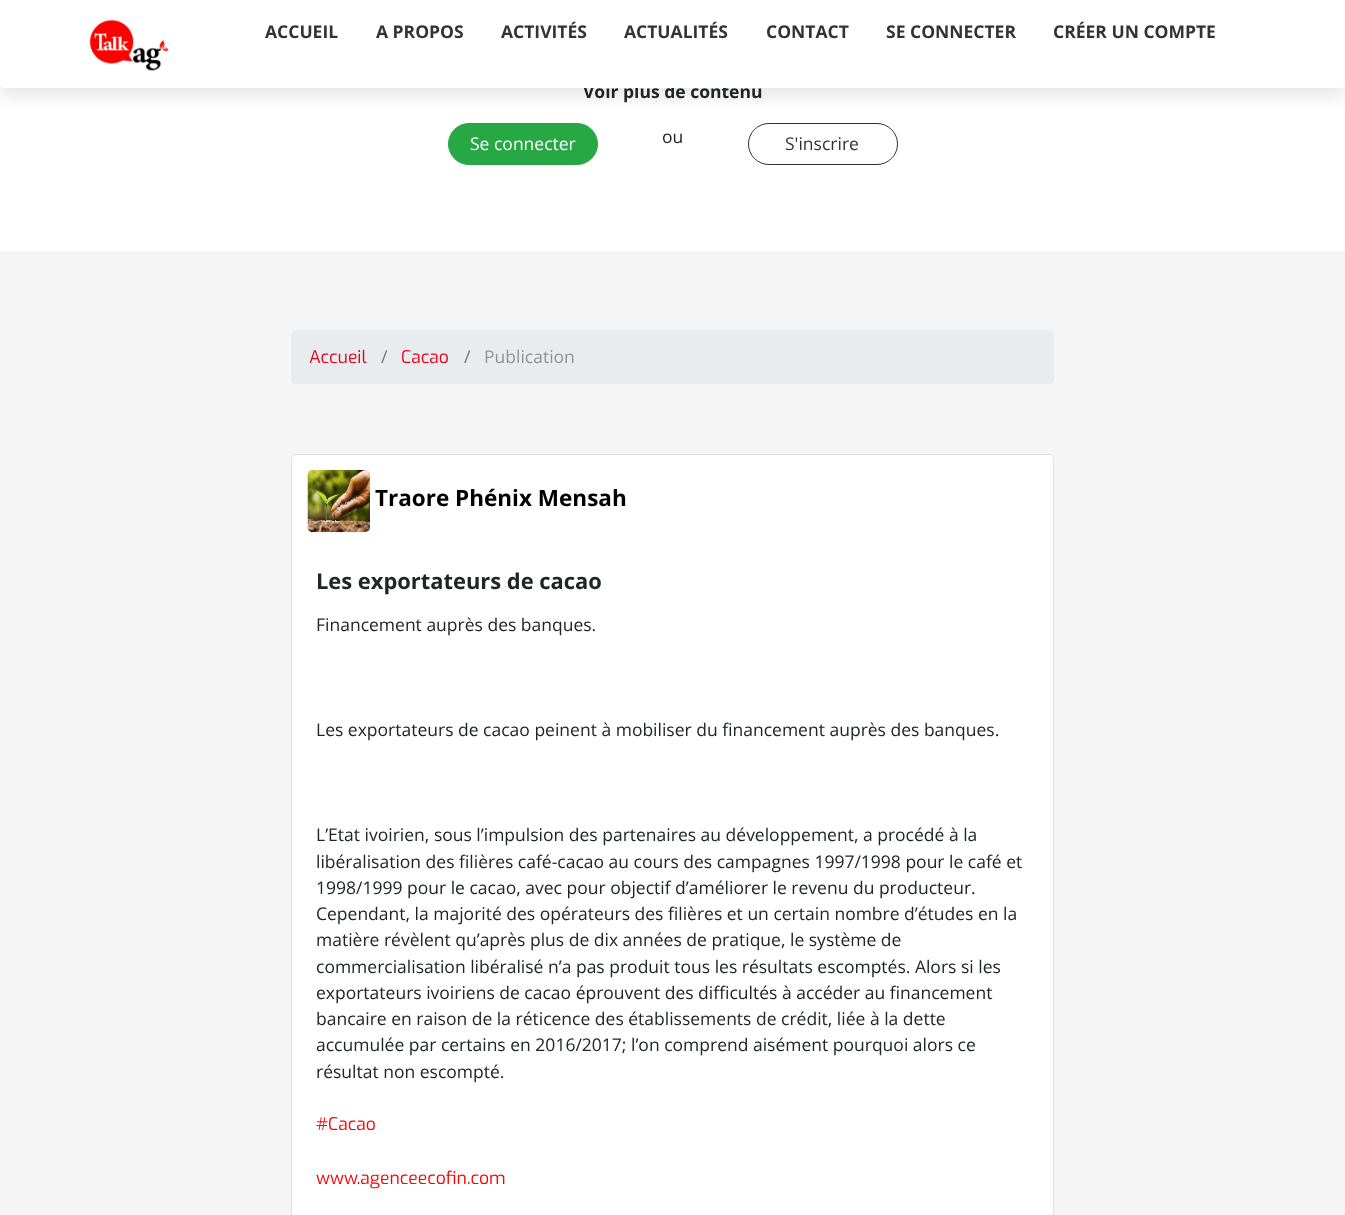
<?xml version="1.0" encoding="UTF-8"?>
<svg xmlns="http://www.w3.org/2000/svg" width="1345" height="1215">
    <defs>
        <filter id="blur1" x="-50%" y="-200%" width="200%" height="500%"><feGaussianBlur stdDeviation="9"/></filter>
    </defs>
    <rect width="100%" height="100%" fill="#F5F5F5"/>
    <rect x="0" y="88" width="1345" height="163" fill="#FFFFFF"/>
    <rect x="448.5" y="123.5" width="149" height="41" rx="20.5" fill="#28A745" stroke="#28A745"/>
    <rect x="748.5" y="123.5" width="149" height="41" rx="20.5" fill="none" stroke="#333333"/>
    <rect x="0" y="9" width="1345" height="87" fill="#000000" fill-opacity="0.05" filter="url(#blur1)"/>
    <text x="583" y="98" font-family="Open Sans" font-size="17.5" font-weight="700" fill="#212529">Voir plus de contenu</text>
    <rect x="0" y="0" width="1345" height="88" fill="#FFFFFF"/>
    <rect x="0" y="9" width="1345" height="87" rx="5" fill="#000000" fill-opacity="0.05" filter="url(#blur1)"/>
    <rect x="0" y="0" width="1345" height="88" rx="5" fill="#FFFFFF"/>
    <image x="89" y="19" width="80" height="52" href="img_01.png"/>
    <text x="265" y="38" font-family="Open Sans" font-size="17.5" font-weight="700" fill="#333333">ACCUEIL</text>
    <text x="376" y="38" font-family="Open Sans" font-size="17.5" font-weight="700" fill="#333333">A PROPOS</text>
    <text x="501" y="38" font-family="Open Sans" font-size="17.5" font-weight="700" fill="#333333">ACTIVITÉS</text>
    <text x="624" y="38" font-family="Open Sans" font-size="17.5" font-weight="700" fill="#333333">ACTUALITÉS</text>
    <text x="766" y="38" font-family="Open Sans" font-size="17.5" font-weight="700" fill="#333333">CONTACT</text>
    <text x="886" y="38" font-family="Open Sans" font-size="17.5" font-weight="700" fill="#333333">SE CONNECTER</text>
    <text x="1053" y="38" font-family="Open Sans" font-size="17.5" font-weight="700" fill="#333333">CRÉER UN COMPTE</text>
    <text x="470" y="150" font-family="Open Sans" font-size="17.5" fill="#FFFFFF">Se connecter</text>
    <text x="662" y="143" font-family="Open Sans" font-size="17.5" fill="#212529">ou</text>
    <text x="785" y="150" font-family="Open Sans" font-size="17.5" fill="#333333">S'inscrire</text>
    <rect x="291" y="330" width="763" height="54" rx="5" fill="#E9ECEF"/>
    <text x="309" y="363" font-family="Exo" font-size="17.5" fill="#E3001A">Accueil</text>
    <text x="381" y="363" font-family="Open Sans" font-size="17.5" fill="#6C757D">/</text>
    <text x="401" y="363" font-family="Exo" font-size="17.5" fill="#E3001A">Cacao</text>
    <text x="464" y="363" font-family="Open Sans" font-size="17.5" fill="#6C757D">/</text>
    <text x="484" y="363" font-family="Open Sans" font-size="17.5" fill="#939393">Publication</text>
    <rect x="291" y="454" width="763" height="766" rx="5" fill="#FFFFFF"/>
    <rect x="291.5" y="454.5" width="762" height="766" rx="4.5" fill="none" stroke="#000000" stroke-opacity="0.12"/>
    <image x="307" y="469" width="63" height="64" href="img_02.png"/>
    <text x="375" y="506" font-family="Open Sans" font-size="22.5" font-weight="700" fill="#000000">Traore Phénix Mensah</text>
    <text x="316" y="589" font-family="Open Sans" font-size="21.9" font-weight="700" fill="#212529">Les exportateurs de cacao</text>
    <text x="316" y="631" font-family="Open Sans" font-size="17.5" fill="#212529">Financement auprès des banques.</text>
    <text x="316" y="736" font-family="Open Sans" font-size="17.5" fill="#212529">Les exportateurs de cacao peinent à mobiliser du financement auprès des banques.</text>
    <text font-family="Open Sans" font-size="17.5" fill="#212529">
        <tspan x="316" y="841">L’Etat ivoirien, sous l’impulsion des partenaires au développement, a procédé à la</tspan>
        <tspan x="316" y="868">libéralisation des filières café-cacao au cours des campagnes 1997/1998 pour le café et</tspan>
        <tspan x="316" y="894">1998/1999 pour le cacao, avec pour objectif d’améliorer le revenu du producteur.</tspan>
        <tspan x="316" y="920">Cependant, la majorité des opérateurs des filières et un certain nombre d’études en la</tspan>
        <tspan x="316" y="946">matière révèlent qu’après plus de dix années de pratique, le système de</tspan>
        <tspan x="316" y="973">commercialisation libéralisé n’a pas produit tous les résultats escomptés. Alors si les</tspan>
        <tspan x="316" y="999">exportateurs ivoiriens de cacao éprouvent des difficultés à accéder au financement</tspan>
        <tspan x="316" y="1025">bancaire en raison de la réticence des établissements de crédit, liée à la dette</tspan>
        <tspan x="316" y="1051">accumulée par certains en 2016/2017; l’on comprend aisément pourquoi alors ce</tspan>
        <tspan x="316" y="1078">résultat non escompté.</tspan>
    </text>
    <text x="316" y="1130" font-family="Exo" font-size="17.5" fill="#FF0000">#Cacao</text>
    <text x="316" y="1184" font-family="Exo" font-size="17.5" fill="#FF0000">www.agenceecofin.com</text>
</svg>
